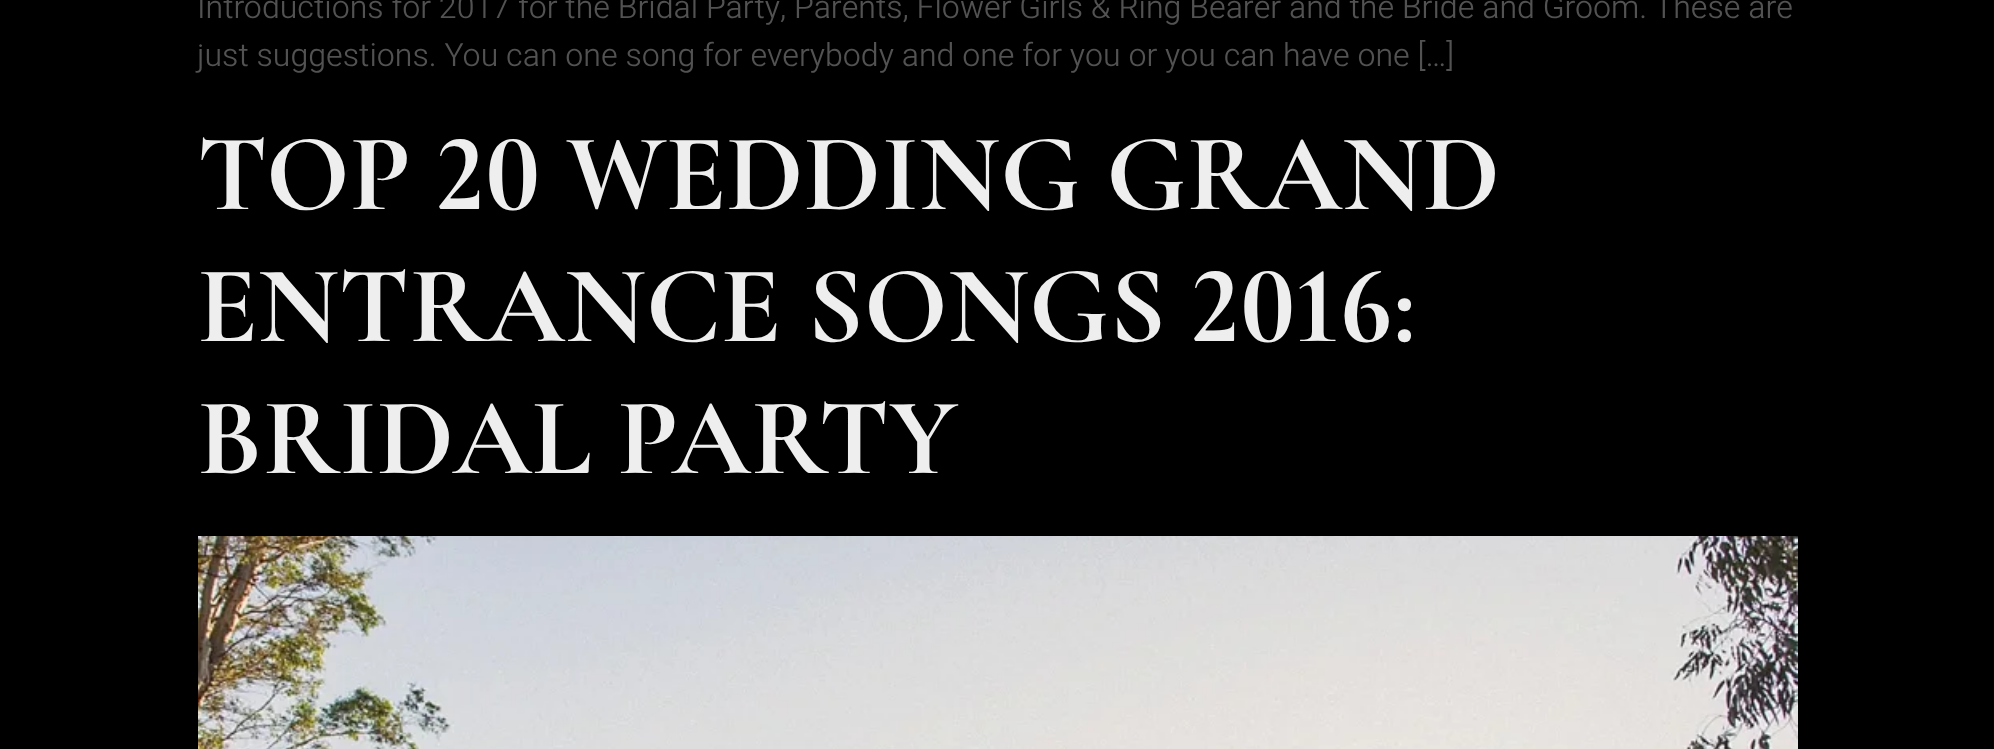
<?xml version="1.0" encoding="UTF-8"?>
<svg xmlns="http://www.w3.org/2000/svg" width="1994" height="749">
    <rect width="100%" height="100%" fill="#000000"/>
    <text font-family="Heebo" font-size="32" font-weight="300" fill="#525252">
        <tspan x="197" y="18">Introductions for 2017 for the Bridal Party, Parents, Flower Girls &amp; Ring Bearer and the Bride and Groom. These are</tspan>
        <tspan x="197" y="66">just suggestions. You can one song for everybody and one for you or you can have one […]</tspan>
    </text>
    <text font-family="Cormorant Infant" font-size="110" font-weight="700" fill="#EEEEEE">
        <tspan x="197" y="209">TOP 20 WEDDING GRAND</tspan>
        <tspan x="197" y="341">ENTRANCE SONGS 2016:</tspan>
        <tspan x="197" y="473">BRIDAL PARTY</tspan>
    </text>
    <image x="198" y="536" width="1600" height="213" href="img_01.png"/>
</svg>
